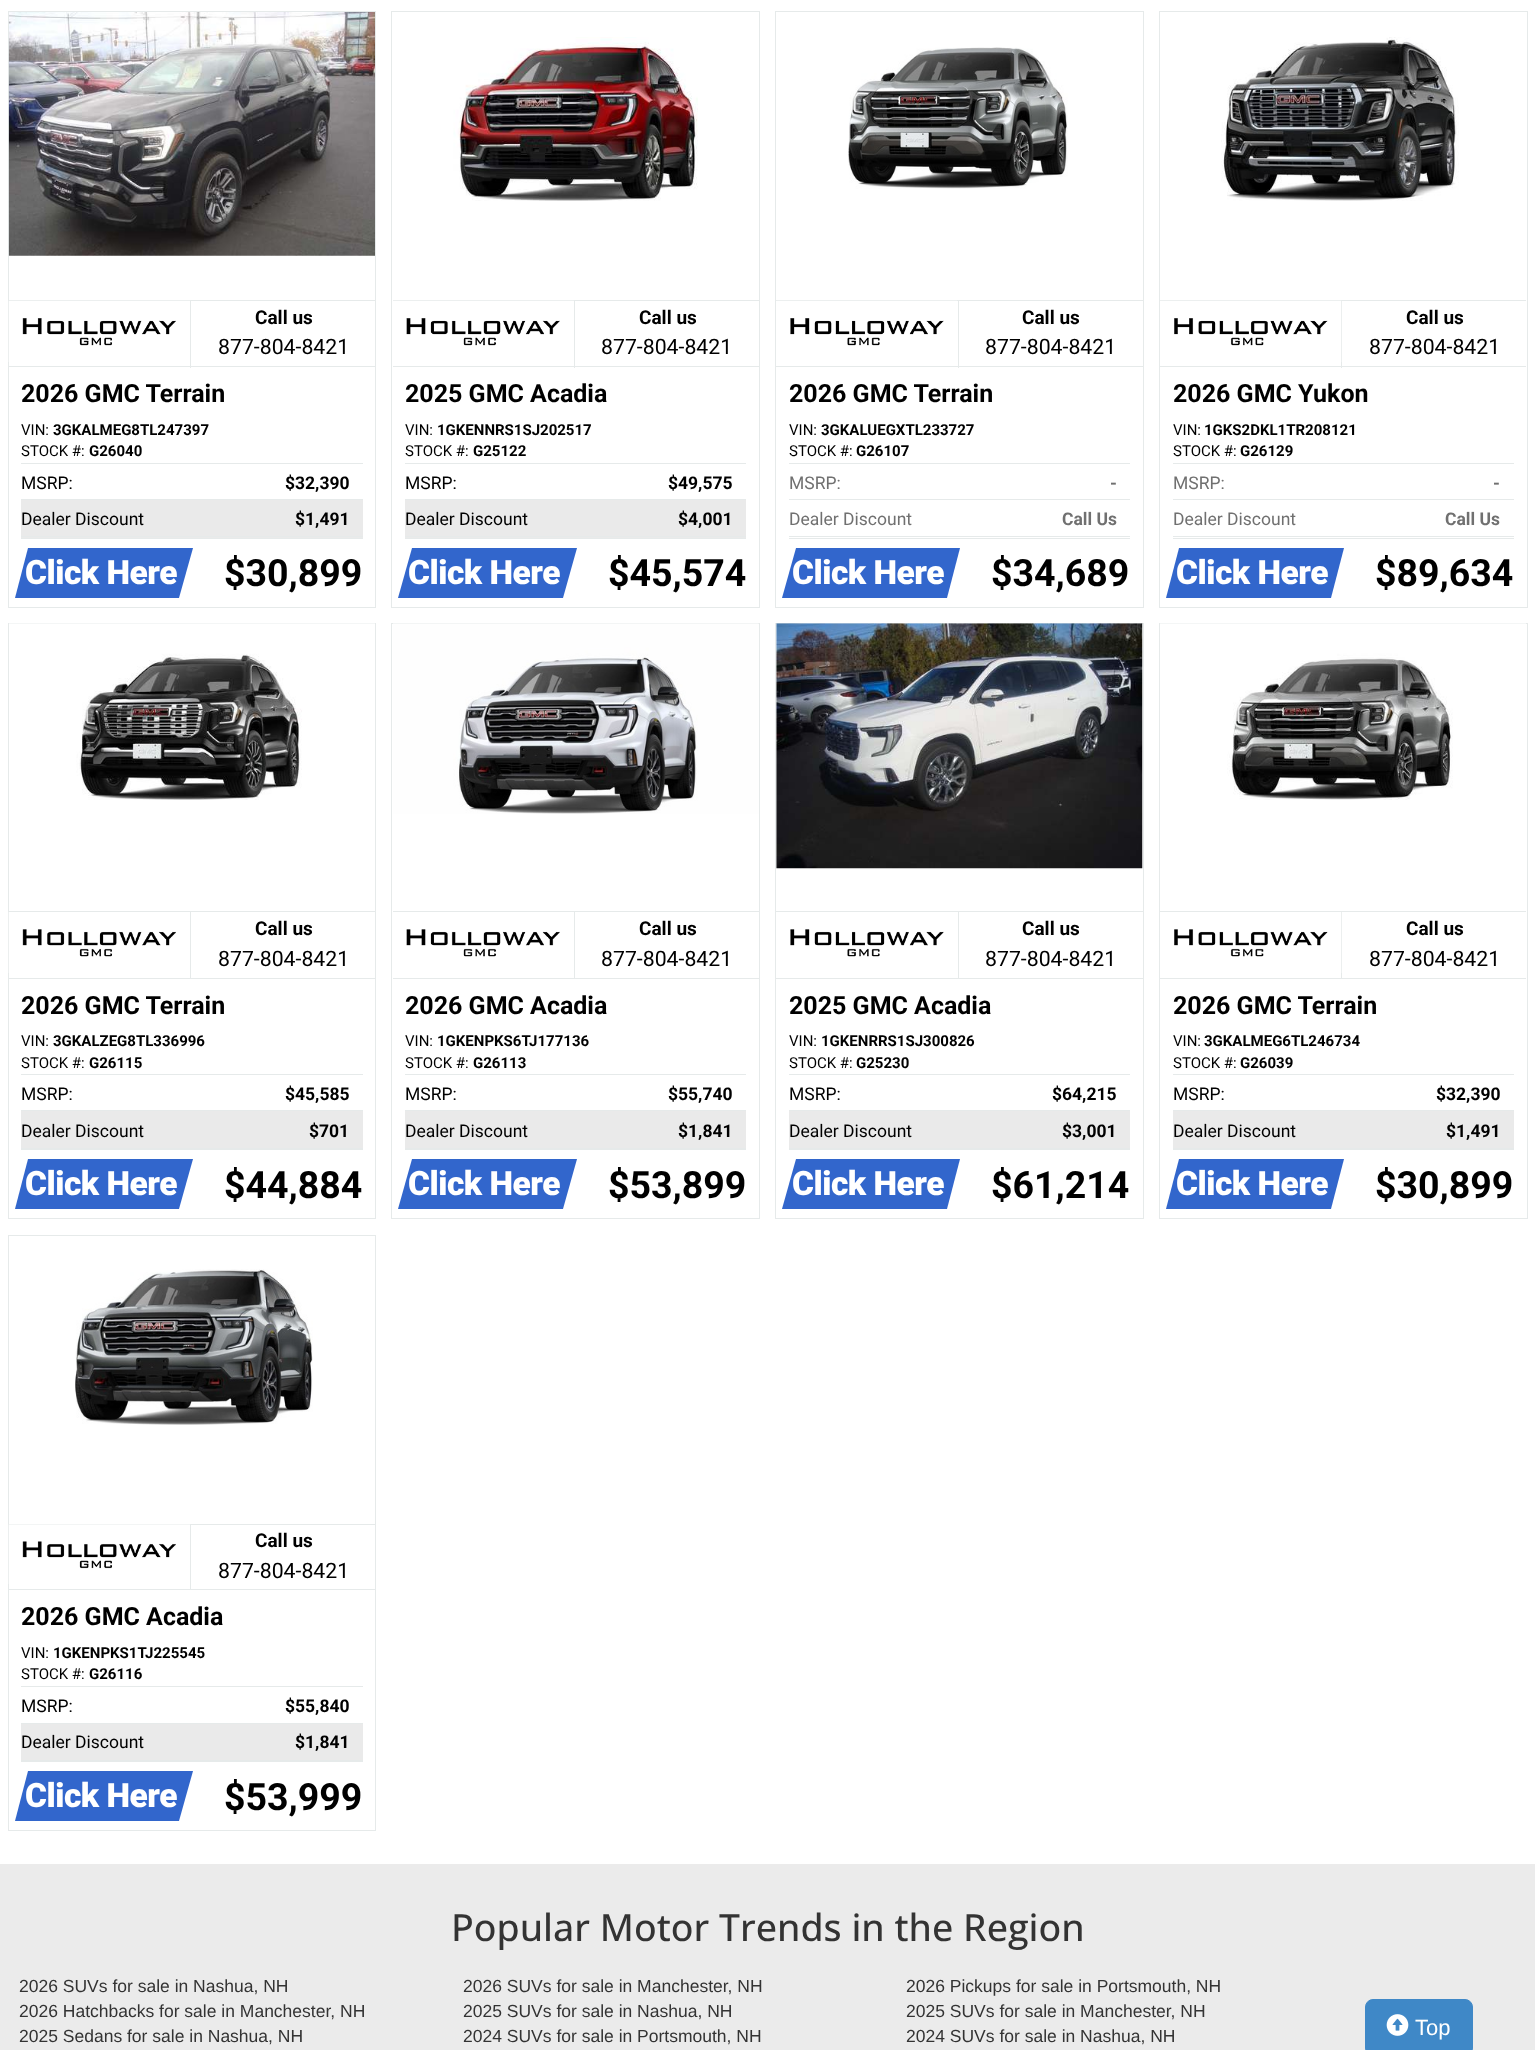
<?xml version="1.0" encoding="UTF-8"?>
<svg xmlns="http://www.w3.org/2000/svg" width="1535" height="2050">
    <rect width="100%" height="100%" fill="#FFFFFF"/>
    <rect x="8.5" y="11.5" width="367" height="596" fill="none" stroke="#E6EAEA"/>
    <image x="8" y="12" width="367" height="244" href="img_01.png"/>
    <rect x="9" y="300" width="366" height="1" fill="#E6EAEA"/>
    <rect x="190" y="300" width="1" height="68" fill="#E6EAEA"/>
    <rect x="9" y="366" width="366" height="1" fill="#E6EAEA"/>
    <image x="8" y="300" width="182" height="62" href="img_02.png"/>
    <text x="255" y="324" font-family="Roboto" font-size="19" font-weight="700" fill="#000000">Call us</text>
    <text x="218" y="354" font-family="Roboto" font-size="21.25" fill="#000000">877-804-8421</text>
    <text x="21" y="402" font-family="Roboto" font-size="25" font-weight="700" fill="#000000">2026 GMC Terrain</text>
    <text x="21" y="435" font-family="Roboto" font-size="15" fill="#000000">VIN:</text>
    <text x="53" y="435" font-family="Roboto" font-size="15" font-weight="700" fill="#000000">3GKALMEG8TL247397</text>
    <text x="21" y="456" font-family="Roboto" font-size="15" fill="#000000">STOCK #:</text>
    <text x="89" y="456" font-family="Roboto" font-size="15" font-weight="700" fill="#000000">G26040</text>
    <rect x="21" y="463" width="342" height="1" fill="#E6EAEA"/>
    <rect x="21" y="499" width="342" height="1" fill="#E6EAEA"/>
    <text x="21" y="489" font-family="Roboto" font-size="17.5" fill="#000000">MSRP:</text>
    <text x="285" y="489" font-family="Roboto" font-size="17.5" font-weight="700" fill="#000000">$32,390</text>
    <rect x="21" y="500" width="342" height="38" fill="#EAEAEA"/>
    <rect x="21" y="536" width="342" height="1" fill="#E6EAEA"/>
    <text x="21" y="525" font-family="Roboto" font-size="17.5" fill="#000000">Dealer Discount</text>
    <text x="295" y="525" font-family="Roboto" font-size="17.5" font-weight="700" fill="#000000">$1,491</text>
    <rect x="21" y="538" width="342" height="1" fill="#E6EAEA"/>
    <path d="M 28 548 H 193 L 179 598 H 15 Z" fill="#3266CC"/>
    <text x="25" y="584" font-family="Roboto" font-size="33.5" font-weight="900" letter-spacing="-0.5" fill="#FFFFFF">Click Here</text>
    <text x="224" y="586" font-family="Roboto" font-size="37.5" font-weight="700" fill="#000000">$30,899</text>
    <rect x="391.5" y="11.5" width="368" height="596" fill="none" stroke="#E6EAEA"/>
    <image x="453" y="37" width="245" height="164" href="img_03.png"/>
    <rect x="393" y="300" width="366" height="1" fill="#E6EAEA"/>
    <rect x="574" y="300" width="1" height="68" fill="#E6EAEA"/>
    <rect x="393" y="366" width="366" height="1" fill="#E6EAEA"/>
    <image x="393" y="300" width="181" height="46" href="img_04.png"/>
    <text x="639" y="324" font-family="Roboto" font-size="19" font-weight="700" fill="#000000">Call us</text>
    <text x="601" y="354" font-family="Roboto" font-size="21.25" fill="#000000">877-804-8421</text>
    <text x="405" y="402" font-family="Roboto" font-size="25" font-weight="700" fill="#000000">2025 GMC Acadia</text>
    <text x="405" y="435" font-family="Roboto" font-size="15" fill="#000000">VIN:</text>
    <text x="437" y="435" font-family="Roboto" font-size="15" font-weight="700" fill="#000000">1GKENNRS1SJ202517</text>
    <text x="405" y="456" font-family="Roboto" font-size="15" fill="#000000">STOCK #:</text>
    <text x="473" y="456" font-family="Roboto" font-size="15" font-weight="700" fill="#000000">G25122</text>
    <rect x="405" y="463" width="341" height="1" fill="#E6EAEA"/>
    <rect x="405" y="499" width="341" height="1" fill="#E6EAEA"/>
    <text x="405" y="489" font-family="Roboto" font-size="17.5" fill="#000000">MSRP:</text>
    <text x="668" y="489" font-family="Roboto" font-size="17.5" font-weight="700" fill="#000000">$49,575</text>
    <rect x="405" y="500" width="341" height="38" fill="#EAEAEA"/>
    <rect x="405" y="536" width="341" height="1" fill="#E6EAEA"/>
    <text x="405" y="525" font-family="Roboto" font-size="17.5" fill="#000000">Dealer Discount</text>
    <text x="678" y="525" font-family="Roboto" font-size="17.5" font-weight="700" fill="#000000">$4,001</text>
    <rect x="405" y="538" width="341" height="1" fill="#E6EAEA"/>
    <path d="M 412 548 H 577 L 563 598 H 398 Z" fill="#3266CC"/>
    <text x="408" y="584" font-family="Roboto" font-size="33.5" font-weight="900" letter-spacing="-0.5" fill="#FFFFFF">Click Here</text>
    <text x="608" y="586" font-family="Roboto" font-size="37.5" font-weight="700" fill="#000000">$45,574</text>
    <rect x="775.5" y="11.5" width="368" height="596" fill="none" stroke="#E6EAEA"/>
    <image x="848" y="47" width="220" height="142" href="img_05.png"/>
    <rect x="776" y="300" width="367" height="1" fill="#E6EAEA"/>
    <rect x="958" y="300" width="1" height="68" fill="#E6EAEA"/>
    <rect x="776" y="366" width="367" height="1" fill="#E6EAEA"/>
    <image x="776" y="300" width="181" height="46" href="img_06.png"/>
    <text x="1022" y="324" font-family="Roboto" font-size="19" font-weight="700" fill="#000000">Call us</text>
    <text x="985" y="354" font-family="Roboto" font-size="21.25" fill="#000000">877-804-8421</text>
    <text x="789" y="402" font-family="Roboto" font-size="25" font-weight="700" fill="#000000">2026 GMC Terrain</text>
    <text x="789" y="435" font-family="Roboto" font-size="15" fill="#000000">VIN:</text>
    <text x="821" y="435" font-family="Roboto" font-size="15" font-weight="700" fill="#000000">3GKALUEGXTL233727</text>
    <text x="789" y="456" font-family="Roboto" font-size="15" fill="#000000">STOCK #:</text>
    <text x="856" y="456" font-family="Roboto" font-size="15" font-weight="700" fill="#000000">G26107</text>
    <rect x="789" y="463" width="341" height="1" fill="#E6EAEA"/>
    <rect x="789" y="499" width="341" height="1" fill="#E6EAEA"/>
    <text x="789" y="489" font-family="Roboto" font-size="17.5" fill="#707070">MSRP:</text>
    <text x="1110" y="489" font-family="Roboto" font-size="17.5" font-weight="700" fill="#707070">-</text>
    <rect x="789" y="536" width="341" height="1" fill="#E6EAEA"/>
    <text x="789" y="525" font-family="Roboto" font-size="17.5" fill="#707070">Dealer Discount</text>
    <text x="1062" y="525" font-family="Roboto" font-size="17.5" font-weight="700" fill="#707070">Call Us</text>
    <rect x="789" y="538" width="341" height="1" fill="#E6EAEA"/>
    <path d="M 796 548 H 960 L 947 598 H 782 Z" fill="#3266CC"/>
    <text x="792" y="584" font-family="Roboto" font-size="33.5" font-weight="900" letter-spacing="-0.5" fill="#FFFFFF">Click Here</text>
    <text x="991" y="586" font-family="Roboto" font-size="37.5" font-weight="700" fill="#000000">$34,689</text>
    <rect x="1159.5" y="11.5" width="368" height="596" fill="none" stroke="#E6EAEA"/>
    <image x="1221" y="37" width="238" height="164" href="img_07.png"/>
    <rect x="1160" y="300" width="366" height="1" fill="#E6EAEA"/>
    <rect x="1341" y="300" width="1" height="68" fill="#E6EAEA"/>
    <rect x="1160" y="366" width="366" height="1" fill="#E6EAEA"/>
    <image x="1160" y="300" width="182" height="62" href="img_08.png"/>
    <text x="1406" y="324" font-family="Roboto" font-size="19" font-weight="700" fill="#000000">Call us</text>
    <text x="1369" y="354" font-family="Roboto" font-size="21.25" fill="#000000">877-804-8421</text>
    <text x="1173" y="402" font-family="Roboto" font-size="25" font-weight="700" fill="#000000">2026 GMC Yukon</text>
    <text x="1173" y="435" font-family="Roboto" font-size="15" fill="#000000">VIN:</text>
    <text x="1204" y="435" font-family="Roboto" font-size="15" font-weight="700" fill="#000000">1GKS2DKL1TR208121</text>
    <text x="1173" y="456" font-family="Roboto" font-size="15" fill="#000000">STOCK #:</text>
    <text x="1240" y="456" font-family="Roboto" font-size="15" font-weight="700" fill="#000000">G26129</text>
    <rect x="1173" y="463" width="341" height="1" fill="#E6EAEA"/>
    <rect x="1173" y="499" width="341" height="1" fill="#E6EAEA"/>
    <text x="1173" y="489" font-family="Roboto" font-size="17.5" fill="#707070">MSRP:</text>
    <text x="1493" y="489" font-family="Roboto" font-size="17.5" font-weight="700" fill="#707070">-</text>
    <rect x="1173" y="536" width="341" height="1" fill="#E6EAEA"/>
    <text x="1173" y="525" font-family="Roboto" font-size="17.5" fill="#707070">Dealer Discount</text>
    <text x="1445" y="525" font-family="Roboto" font-size="17.5" font-weight="700" fill="#707070">Call Us</text>
    <rect x="1173" y="538" width="341" height="1" fill="#E6EAEA"/>
    <path d="M 1179 548 H 1344 L 1331 598 H 1166 Z" fill="#3266CC"/>
    <text x="1176" y="584" font-family="Roboto" font-size="33.5" font-weight="900" letter-spacing="-0.5" fill="#FFFFFF">Click Here</text>
    <text x="1375" y="586" font-family="Roboto" font-size="37.5" font-weight="700" fill="#000000">$89,634</text>
    <rect x="8.5" y="623.5" width="367" height="595" fill="none" stroke="#E6EAEA"/>
    <image x="9" y="623" width="366" height="177" href="img_09.png"/>
    <rect x="9" y="911" width="366" height="1" fill="#E6EAEA"/>
    <rect x="190" y="911" width="1" height="68" fill="#E6EAEA"/>
    <rect x="9" y="978" width="366" height="1" fill="#E6EAEA"/>
    <image x="8" y="912" width="168" height="61" href="img_10.png"/>
    <text x="255" y="935" font-family="Roboto" font-size="19" font-weight="700" fill="#000000">Call us</text>
    <text x="218" y="966" font-family="Roboto" font-size="21.25" fill="#000000">877-804-8421</text>
    <text x="21" y="1014" font-family="Roboto" font-size="25" font-weight="700" fill="#000000">2026 GMC Terrain</text>
    <text x="21" y="1046" font-family="Roboto" font-size="15" fill="#000000">VIN:</text>
    <text x="53" y="1046" font-family="Roboto" font-size="15" font-weight="700" fill="#000000">3GKALZEG8TL336996</text>
    <text x="21" y="1068" font-family="Roboto" font-size="15" fill="#000000">STOCK #:</text>
    <text x="89" y="1068" font-family="Roboto" font-size="15" font-weight="700" fill="#000000">G26115</text>
    <rect x="21" y="1074" width="342" height="1" fill="#E6EAEA"/>
    <rect x="21" y="1110" width="342" height="1" fill="#E6EAEA"/>
    <text x="21" y="1100" font-family="Roboto" font-size="17.5" fill="#000000">MSRP:</text>
    <text x="285" y="1100" font-family="Roboto" font-size="17.5" font-weight="700" fill="#000000">$45,585</text>
    <rect x="21" y="1111" width="342" height="37" fill="#EAEAEA"/>
    <rect x="21" y="1148" width="342" height="2" fill="#E6EAEA"/>
    <text x="21" y="1137" font-family="Roboto" font-size="17.5" fill="#000000">Dealer Discount</text>
    <text x="309" y="1137" font-family="Roboto" font-size="17.5" font-weight="700" fill="#000000">$701</text>
    <path d="M 28 1159 H 193 L 179 1209 H 15 Z" fill="#3266CC"/>
    <text x="25" y="1195" font-family="Roboto" font-size="33.5" font-weight="900" letter-spacing="-0.5" fill="#FFFFFF">Click Here</text>
    <text x="224" y="1198" font-family="Roboto" font-size="37.5" font-weight="700" fill="#000000">$44,884</text>
    <rect x="391.5" y="623.5" width="368" height="595" fill="none" stroke="#E6EAEA"/>
    <image x="393" y="623" width="366" height="191" href="img_11.png"/>
    <rect x="393" y="911" width="366" height="1" fill="#E6EAEA"/>
    <rect x="574" y="911" width="1" height="68" fill="#E6EAEA"/>
    <rect x="393" y="978" width="366" height="1" fill="#E6EAEA"/>
    <image x="406" y="929" width="154" height="28" href="img_12.png"/>
    <text x="639" y="935" font-family="Roboto" font-size="19" font-weight="700" fill="#000000">Call us</text>
    <text x="601" y="966" font-family="Roboto" font-size="21.25" fill="#000000">877-804-8421</text>
    <text x="405" y="1014" font-family="Roboto" font-size="25" font-weight="700" fill="#000000">2026 GMC Acadia</text>
    <text x="405" y="1046" font-family="Roboto" font-size="15" fill="#000000">VIN:</text>
    <text x="437" y="1046" font-family="Roboto" font-size="15" font-weight="700" fill="#000000">1GKENPKS6TJ177136</text>
    <text x="405" y="1068" font-family="Roboto" font-size="15" fill="#000000">STOCK #:</text>
    <text x="473" y="1068" font-family="Roboto" font-size="15" font-weight="700" fill="#000000">G26113</text>
    <rect x="405" y="1074" width="341" height="1" fill="#E6EAEA"/>
    <rect x="405" y="1110" width="341" height="1" fill="#E6EAEA"/>
    <text x="405" y="1100" font-family="Roboto" font-size="17.5" fill="#000000">MSRP:</text>
    <text x="668" y="1100" font-family="Roboto" font-size="17.5" font-weight="700" fill="#000000">$55,740</text>
    <rect x="405" y="1111" width="341" height="37" fill="#EAEAEA"/>
    <rect x="405" y="1148" width="341" height="2" fill="#E6EAEA"/>
    <text x="405" y="1137" font-family="Roboto" font-size="17.5" fill="#000000">Dealer Discount</text>
    <text x="678" y="1137" font-family="Roboto" font-size="17.5" font-weight="700" fill="#000000">$1,841</text>
    <path d="M 412 1159 H 577 L 563 1209 H 398 Z" fill="#3266CC"/>
    <text x="408" y="1195" font-family="Roboto" font-size="33.5" font-weight="900" letter-spacing="-0.5" fill="#FFFFFF">Click Here</text>
    <text x="608" y="1198" font-family="Roboto" font-size="37.5" font-weight="700" fill="#000000">$53,899</text>
    <rect x="775.5" y="623.5" width="368" height="595" fill="none" stroke="#E6EAEA"/>
    <image x="776" y="623" width="367" height="246" href="img_13.png"/>
    <rect x="776" y="911" width="367" height="1" fill="#E6EAEA"/>
    <rect x="958" y="911" width="1" height="68" fill="#E6EAEA"/>
    <rect x="776" y="978" width="367" height="1" fill="#E6EAEA"/>
    <image x="790" y="929" width="154" height="28" href="img_14.png"/>
    <text x="1022" y="935" font-family="Roboto" font-size="19" font-weight="700" fill="#000000">Call us</text>
    <text x="985" y="966" font-family="Roboto" font-size="21.25" fill="#000000">877-804-8421</text>
    <text x="789" y="1014" font-family="Roboto" font-size="25" font-weight="700" fill="#000000">2025 GMC Acadia</text>
    <text x="789" y="1046" font-family="Roboto" font-size="15" fill="#000000">VIN:</text>
    <text x="821" y="1046" font-family="Roboto" font-size="15" font-weight="700" fill="#000000">1GKENRRS1SJ300826</text>
    <text x="789" y="1068" font-family="Roboto" font-size="15" fill="#000000">STOCK #:</text>
    <text x="856" y="1068" font-family="Roboto" font-size="15" font-weight="700" fill="#000000">G25230</text>
    <rect x="789" y="1074" width="341" height="1" fill="#E6EAEA"/>
    <rect x="789" y="1110" width="341" height="1" fill="#E6EAEA"/>
    <text x="789" y="1100" font-family="Roboto" font-size="17.5" fill="#000000">MSRP:</text>
    <text x="1052" y="1100" font-family="Roboto" font-size="17.5" font-weight="700" fill="#000000">$64,215</text>
    <rect x="789" y="1111" width="341" height="37" fill="#EAEAEA"/>
    <rect x="789" y="1148" width="341" height="2" fill="#E6EAEA"/>
    <text x="789" y="1137" font-family="Roboto" font-size="17.5" fill="#000000">Dealer Discount</text>
    <text x="1062" y="1137" font-family="Roboto" font-size="17.5" font-weight="700" fill="#000000">$3,001</text>
    <path d="M 796 1159 H 960 L 947 1209 H 782 Z" fill="#3266CC"/>
    <text x="792" y="1195" font-family="Roboto" font-size="33.5" font-weight="900" letter-spacing="-0.5" fill="#FFFFFF">Click Here</text>
    <text x="991" y="1198" font-family="Roboto" font-size="37.5" font-weight="700" fill="#000000">$61,214</text>
    <rect x="1159.5" y="623.5" width="368" height="595" fill="none" stroke="#E6EAEA"/>
    <image x="1160" y="623" width="366" height="177" href="img_15.png"/>
    <rect x="1160" y="911" width="366" height="1" fill="#E6EAEA"/>
    <rect x="1341" y="911" width="1" height="68" fill="#E6EAEA"/>
    <rect x="1160" y="978" width="366" height="1" fill="#E6EAEA"/>
    <image x="1174" y="912" width="168" height="61" href="img_16.png"/>
    <text x="1406" y="935" font-family="Roboto" font-size="19" font-weight="700" fill="#000000">Call us</text>
    <text x="1369" y="966" font-family="Roboto" font-size="21.25" fill="#000000">877-804-8421</text>
    <text x="1173" y="1014" font-family="Roboto" font-size="25" font-weight="700" fill="#000000">2026 GMC Terrain</text>
    <text x="1173" y="1046" font-family="Roboto" font-size="15" fill="#000000">VIN:</text>
    <text x="1204" y="1046" font-family="Roboto" font-size="15" font-weight="700" fill="#000000">3GKALMEG6TL246734</text>
    <text x="1173" y="1068" font-family="Roboto" font-size="15" fill="#000000">STOCK #:</text>
    <text x="1240" y="1068" font-family="Roboto" font-size="15" font-weight="700" fill="#000000">G26039</text>
    <rect x="1173" y="1074" width="341" height="1" fill="#E6EAEA"/>
    <rect x="1173" y="1110" width="341" height="1" fill="#E6EAEA"/>
    <text x="1173" y="1100" font-family="Roboto" font-size="17.5" fill="#000000">MSRP:</text>
    <text x="1436" y="1100" font-family="Roboto" font-size="17.5" font-weight="700" fill="#000000">$32,390</text>
    <rect x="1173" y="1111" width="341" height="37" fill="#EAEAEA"/>
    <rect x="1173" y="1148" width="341" height="2" fill="#E6EAEA"/>
    <text x="1173" y="1137" font-family="Roboto" font-size="17.5" fill="#000000">Dealer Discount</text>
    <text x="1446" y="1137" font-family="Roboto" font-size="17.5" font-weight="700" fill="#000000">$1,491</text>
    <path d="M 1179 1159 H 1344 L 1331 1209 H 1166 Z" fill="#3266CC"/>
    <text x="1176" y="1195" font-family="Roboto" font-size="33.5" font-weight="900" letter-spacing="-0.5" fill="#FFFFFF">Click Here</text>
    <text x="1375" y="1198" font-family="Roboto" font-size="37.5" font-weight="700" fill="#000000">$30,899</text>
    <rect x="8.5" y="1235.5" width="367" height="595" fill="none" stroke="#E6EAEA"/>
    <image x="75" y="1269" width="238" height="156" href="img_17.png"/>
    <rect x="9" y="1524" width="366" height="1" fill="#E6EAEA"/>
    <rect x="190" y="1524" width="1" height="66" fill="#E6EAEA"/>
    <rect x="9" y="1589" width="366" height="1" fill="#E6EAEA"/>
    <image x="8" y="1524" width="182" height="60" href="img_18.png"/>
    <text x="255" y="1547" font-family="Roboto" font-size="19" font-weight="700" fill="#000000">Call us</text>
    <text x="218" y="1578" font-family="Roboto" font-size="21.25" fill="#000000">877-804-8421</text>
    <text x="21" y="1625" font-family="Roboto" font-size="25" font-weight="700" fill="#000000">2026 GMC Acadia</text>
    <text x="21" y="1658" font-family="Roboto" font-size="15" fill="#000000">VIN:</text>
    <text x="53" y="1658" font-family="Roboto" font-size="15" font-weight="700" fill="#000000">1GKENPKS1TJ225545</text>
    <text x="21" y="1679" font-family="Roboto" font-size="15" fill="#000000">STOCK #:</text>
    <text x="89" y="1679" font-family="Roboto" font-size="15" font-weight="700" fill="#000000">G26116</text>
    <rect x="21" y="1686" width="342" height="1" fill="#E6EAEA"/>
    <rect x="21" y="1723" width="342" height="1" fill="#E6EAEA"/>
    <text x="21" y="1712" font-family="Roboto" font-size="17.5" fill="#000000">MSRP:</text>
    <text x="285" y="1712" font-family="Roboto" font-size="17.5" font-weight="700" fill="#000000">$55,840</text>
    <rect x="21" y="1724" width="342" height="36" fill="#EAEAEA"/>
    <rect x="21" y="1760" width="342" height="2" fill="#E6EAEA"/>
    <text x="21" y="1748" font-family="Roboto" font-size="17.5" fill="#000000">Dealer Discount</text>
    <text x="295" y="1748" font-family="Roboto" font-size="17.5" font-weight="700" fill="#000000">$1,841</text>
    <path d="M 28 1771 H 193 L 179 1821 H 15 Z" fill="#3266CC"/>
    <text x="25" y="1807" font-family="Roboto" font-size="33.5" font-weight="900" letter-spacing="-0.5" fill="#FFFFFF">Click Here</text>
    <text x="224" y="1810" font-family="Roboto" font-size="37.5" font-weight="700" fill="#000000">$53,999</text>
    <rect x="0" y="1864" width="1535" height="186" fill="#EBEBEB"/>
    <rect x="1365.5" y="1999.5" width="107" height="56" rx="7.5" fill="#3F88C7" stroke="#3F88C7"/>
    <image x="1386" y="2014" width="23" height="22" href="img_19.png"/>
    <text x="1415" y="2035" font-family="Liberation Sans" font-size="22" fill="#FFFFFF">Top</text>
    <text x="451" y="1941" font-family="Open Sans" font-size="37.5" font-weight="500" fill="#333333">Popular Motor Trends in the Region</text>
    <text x="19" y="1992" font-family="Liberation Sans" font-size="17.5" fill="#333333">2026 SUVs for sale in Nashua, NH</text>
    <text x="463" y="1992" font-family="Liberation Sans" font-size="17.5" fill="#333333">2026 SUVs for sale in Manchester, NH</text>
    <text x="906" y="1992" font-family="Liberation Sans" font-size="17.5" fill="#333333">2026 Pickups for sale in Portsmouth, NH</text>
    <text x="19" y="2017" font-family="Liberation Sans" font-size="17.5" fill="#333333">2026 Hatchbacks for sale in Manchester, NH</text>
    <text x="463" y="2017" font-family="Liberation Sans" font-size="17.5" fill="#333333">2025 SUVs for sale in Nashua, NH</text>
    <text x="906" y="2017" font-family="Liberation Sans" font-size="17.5" fill="#333333">2025 SUVs for sale in Manchester, NH</text>
    <text x="19" y="2042" font-family="Liberation Sans" font-size="17.5" fill="#333333">2025 Sedans for sale in Nashua, NH</text>
    <text x="463" y="2042" font-family="Liberation Sans" font-size="17.5" fill="#333333">2024 SUVs for sale in Portsmouth, NH</text>
    <text x="906" y="2042" font-family="Liberation Sans" font-size="17.5" fill="#333333">2024 SUVs for sale in Nashua, NH</text>
</svg>
